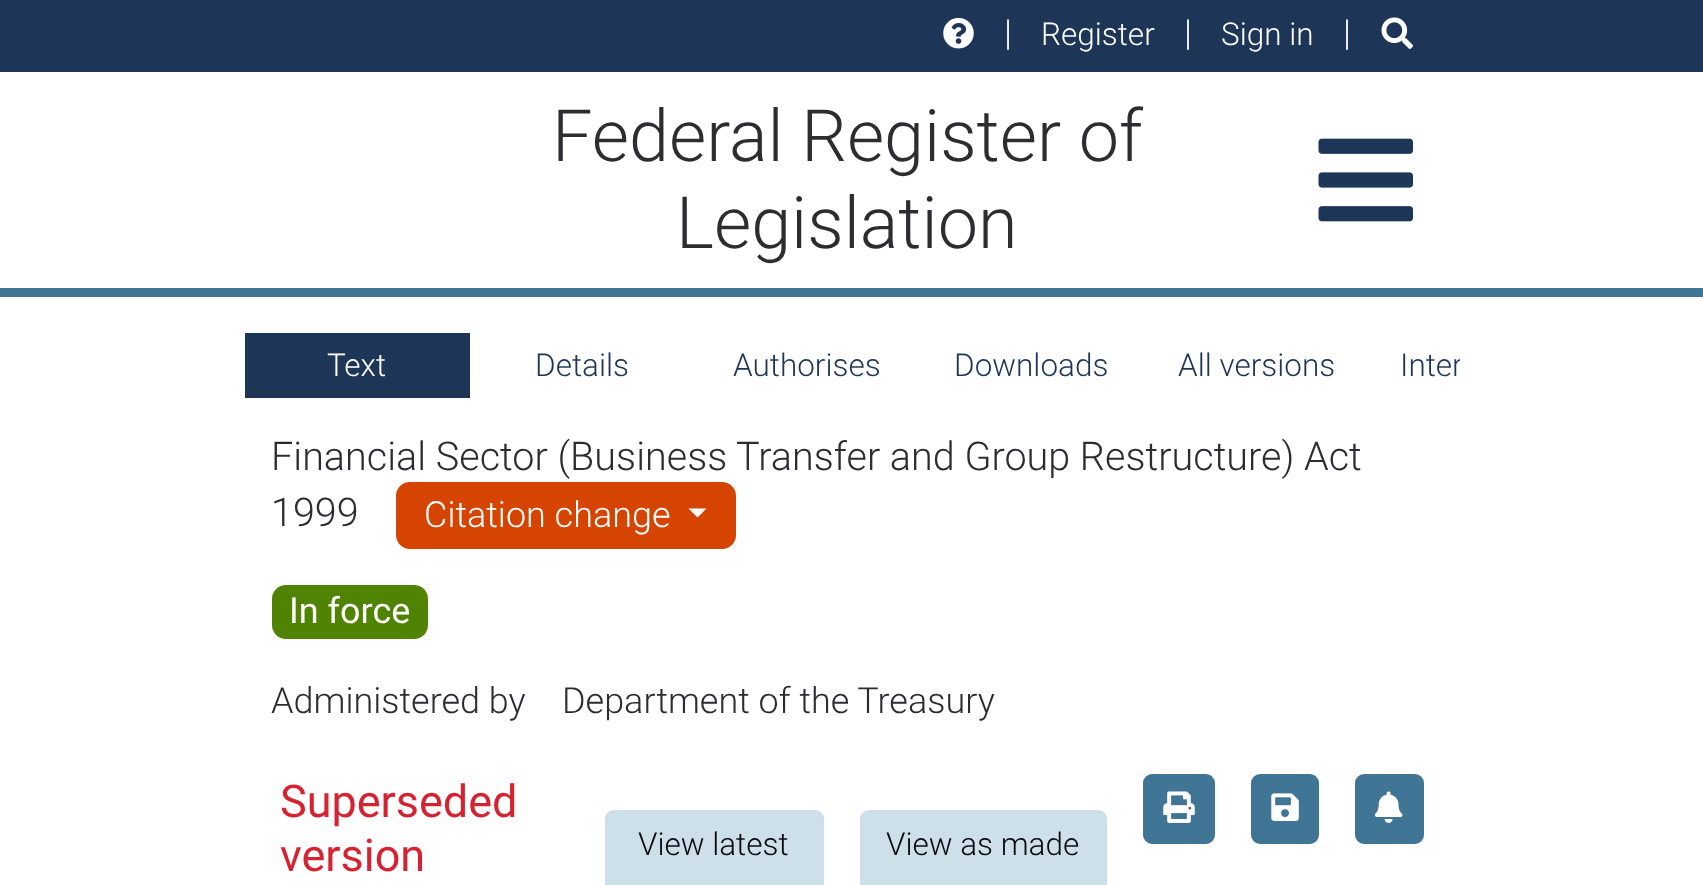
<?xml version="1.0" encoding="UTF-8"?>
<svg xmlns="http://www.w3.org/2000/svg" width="1703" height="885">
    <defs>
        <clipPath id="clip1"><rect x="245" y="333" width="1215" height="65"/></clipPath>
    </defs>
    <rect width="100%" height="100%" fill="#FFFFFF"/>
    <rect x="0" y="288" width="1703" height="9" fill="#417595"/>
    <rect x="0" y="0" width="1703" height="72" fill="#1D3557"/>
    <image x="943" y="17" width="31" height="32" href="img_01.png"/>
    <text x="1004" y="45" font-family="Roboto" font-size="36" font-weight="300" fill="#FFFFFF">|</text>
    <text x="1041" y="45" font-family="Roboto" font-size="31.5" font-weight="300" fill="#FFFFFF">Register</text>
    <text x="1184" y="45" font-family="Roboto" font-size="36" font-weight="300" fill="#FFFFFF">|</text>
    <text x="1221" y="45" font-family="Roboto" font-size="31.5" font-weight="300" fill="#FFFFFF">Sign in</text>
    <text x="1343" y="45" font-family="Roboto" font-size="36" font-weight="300" fill="#FFFFFF">|</text>
    <image x="1381" y="17" width="32" height="32" href="img_02.png"/>
    <text x="552" y="161" font-family="Roboto" font-size="72" font-weight="300" fill="#2D2D31">Federal Register of</text>
    <text x="676" y="248" font-family="Roboto" font-size="72" font-weight="300" fill="#2D2D31">Legislation</text>
    <image x="1318" y="138" width="95" height="84" href="img_03.png"/>
    <rect x="245" y="333" width="225" height="65" fill="#1D3557"/>
    <text x="327" y="376" font-family="Roboto" font-size="31.5" font-weight="300" fill="#FFFFFF">Text</text>
    <text x="535" y="376" font-family="Roboto" font-size="31.5" font-weight="300" fill="#1D3557">Details</text>
    <text x="733" y="376" font-family="Roboto" font-size="31.5" font-weight="300" fill="#1D3557">Authorises</text>
    <text x="954" y="376" font-family="Roboto" font-size="31.5" font-weight="300" fill="#1D3557">Downloads</text>
    <text x="1178" y="376" font-family="Roboto" font-size="31.5" font-weight="300" fill="#1D3557">All versions</text>
    <g clip-path="url(#clip1)">
        <text x="1400" y="376" font-family="Roboto" font-size="31.5" font-weight="300" fill="#1D3557">Inter</text>
    </g>
    <text font-family="Roboto" font-size="39.6" font-weight="300" fill="#2D2D31">
        <tspan x="271" y="470">Financial Sector (Business Transfer and Group Restructure) Act</tspan>
        <tspan x="271" y="526">1999</tspan>
    </text>
    <rect x="397" y="483" width="338" height="65" rx="13" fill="#D54400" stroke="#D54400" stroke-width="2"/>
    <text x="424" y="527" font-family="Roboto" font-size="36" font-weight="300" fill="#FFFFFF">Citation change</text>
    <path d="M 688.5 508.5 H 706.5 L 697.5 517.5 Z" fill="#FFFFFF"/>
    <rect x="272" y="585" width="156" height="54" rx="14" fill="#518302"/>
    <text x="289" y="623" font-family="Roboto" font-size="36" fill="#FFFFFF">In force</text>
    <text x="271" y="713" font-family="Roboto" font-size="36" font-weight="300" fill="#2D2D31">Administered by</text>
    <text x="562" y="713" font-family="Roboto" font-size="36" font-weight="300" fill="#2D2D31">Department of the Treasury</text>
    <text font-family="Roboto" font-size="45" fill="#D62332">
        <tspan x="280" y="817">Superseded</tspan>
        <tspan x="280" y="871">version</tspan>
    </text>
    <rect x="606" y="811" width="217" height="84" rx="8" fill="#CDDFE9" stroke="#CDDFE9" stroke-width="2"/>
    <text x="638" y="855" font-family="Roboto" font-size="31.5" font-weight="300" fill="#08080D">View latest</text>
    <rect x="861" y="811" width="245" height="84" rx="8" fill="#CDDFE9" stroke="#CDDFE9" stroke-width="2"/>
    <text x="886" y="855" font-family="Roboto" font-size="31.5" font-weight="300" fill="#08080D">View as made</text>
    <rect x="1144" y="775" width="70" height="68" rx="8" fill="#417595" stroke="#417595" stroke-width="2"/>
    <image x="1163" y="791" width="32" height="32" href="img_04.png"/>
    <rect x="1252" y="775" width="66" height="68" rx="8" fill="#417595" stroke="#417595" stroke-width="2"/>
    <image x="1271" y="793" width="28" height="28" href="img_05.png"/>
    <rect x="1356" y="775" width="67" height="68" rx="8" fill="#417595" stroke="#417595" stroke-width="2"/>
    <image x="1374" y="791" width="29" height="32" href="img_06.png"/>
</svg>
